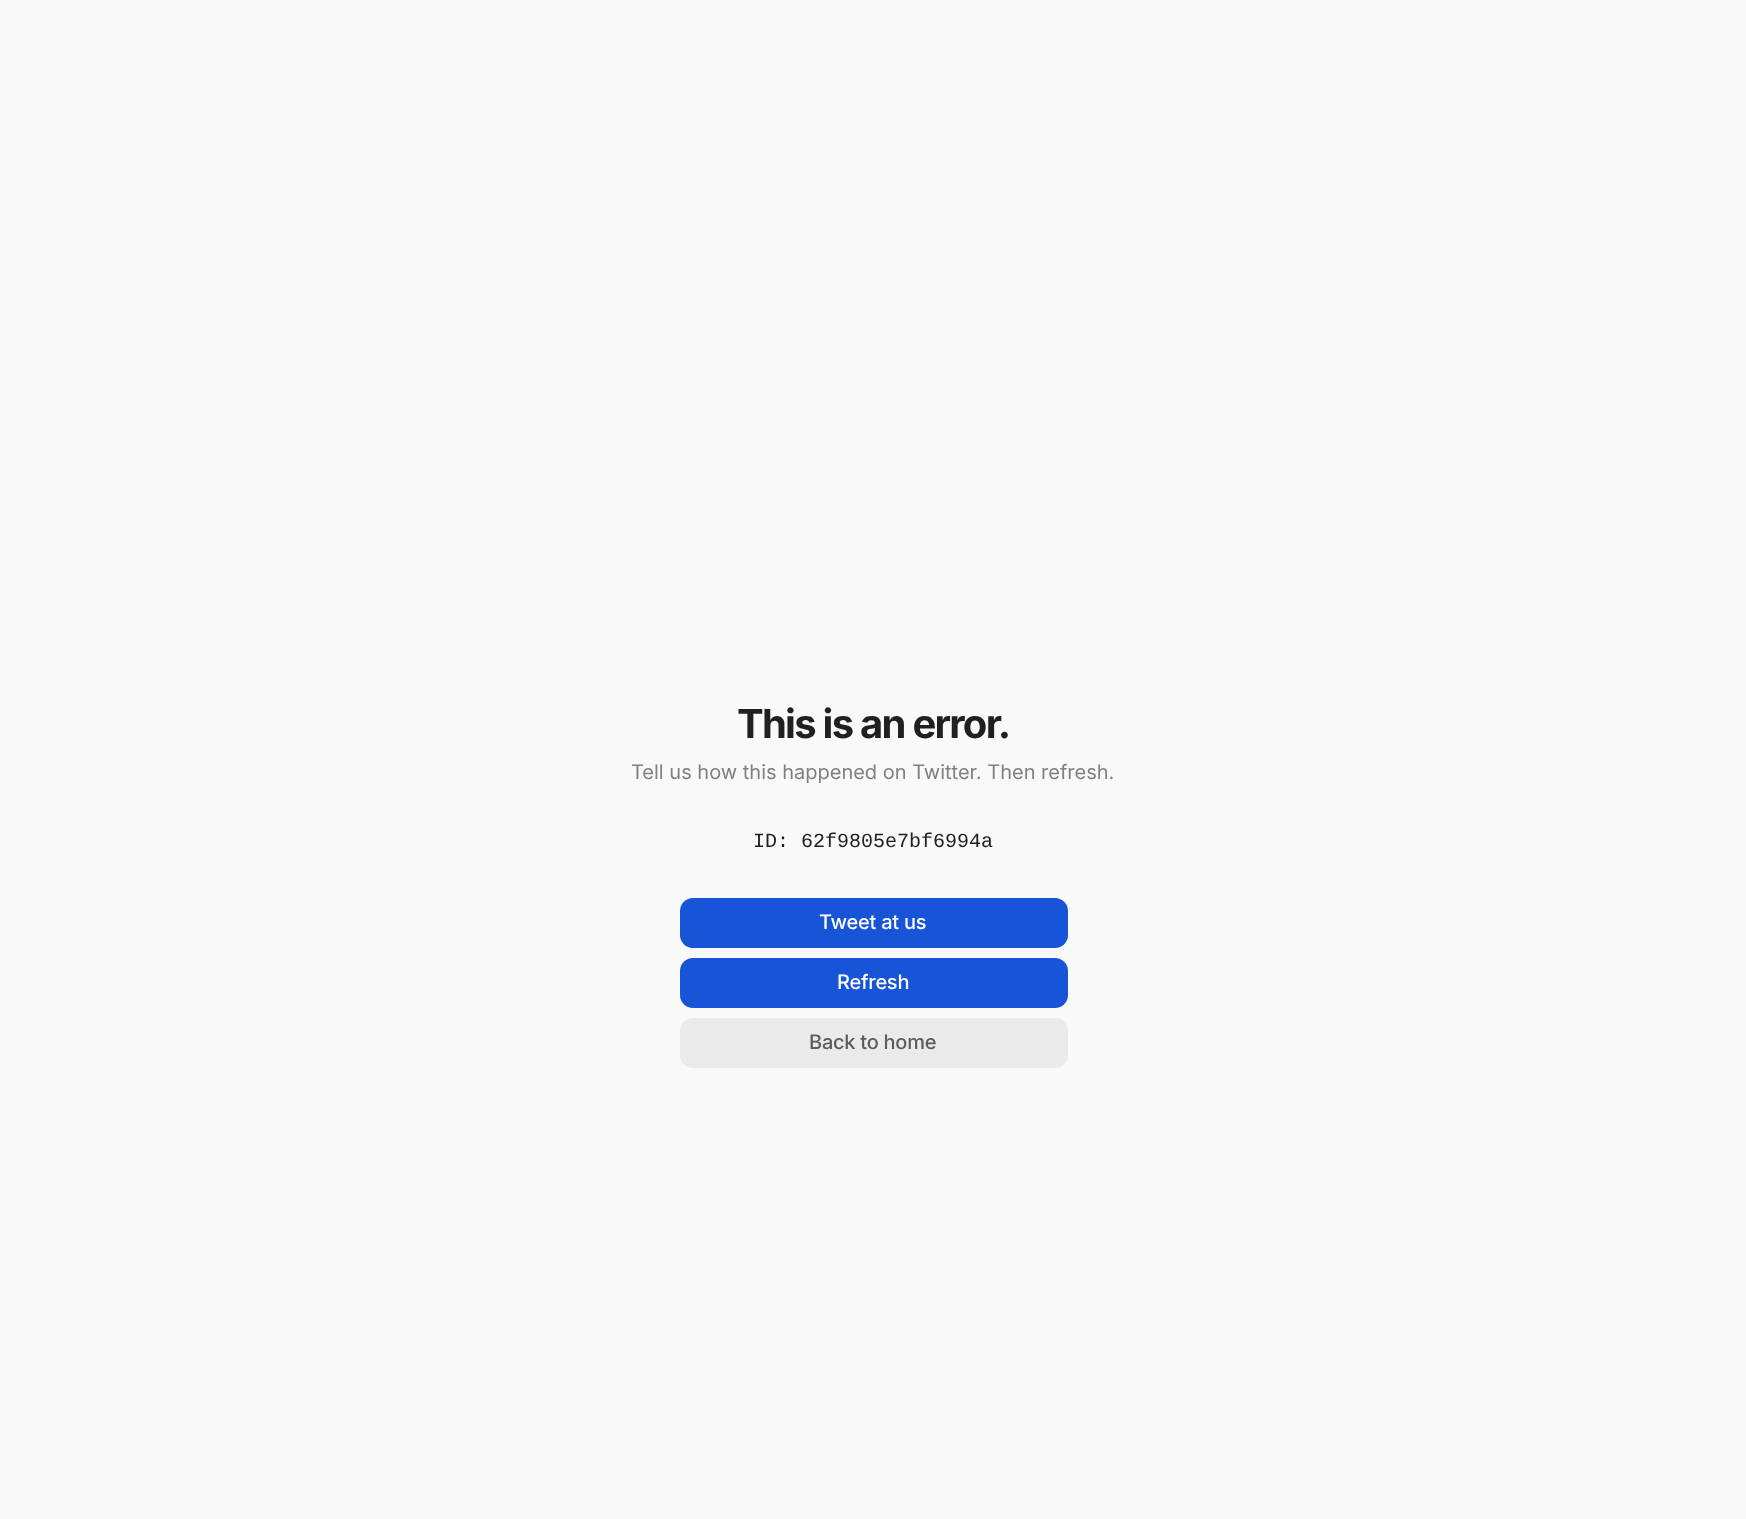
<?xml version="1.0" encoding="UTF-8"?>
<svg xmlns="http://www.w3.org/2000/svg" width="1746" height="1519">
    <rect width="100%" height="100%" fill="#F9F9F9"/>
    <text x="737" y="738" font-family="Inter" font-size="40" font-weight="700" letter-spacing="-1.75" fill="#202020">This is an error.</text>
    <text x="631" y="779" font-family="Inter" font-size="20" fill="#808080">Tell us how this happened on Twitter. Then refresh.</text>
    <text x="753" y="847" font-family="Liberation Mono" font-size="20" fill="#202020">ID: 62f9805e7bf6994a</text>
    <rect x="680" y="898" width="388" height="50" rx="13" fill="#1754D8"/>
    <text x="819" y="929" font-family="Inter" font-size="20" font-weight="500" letter-spacing="-0.25" fill="#FFFFFF">Tweet at us</text>
    <rect x="680" y="958" width="388" height="50" rx="13" fill="#1754D8"/>
    <text x="837" y="989" font-family="Inter" font-size="20" font-weight="500" letter-spacing="-0.25" fill="#FFFFFF">Refresh</text>
    <rect x="680" y="1018" width="388" height="50" rx="13" fill="#EAEAEA"/>
    <text x="809" y="1049" font-family="Inter" font-size="20" font-weight="500" letter-spacing="-0.25" fill="#5C5C5C">Back to home</text>
</svg>
